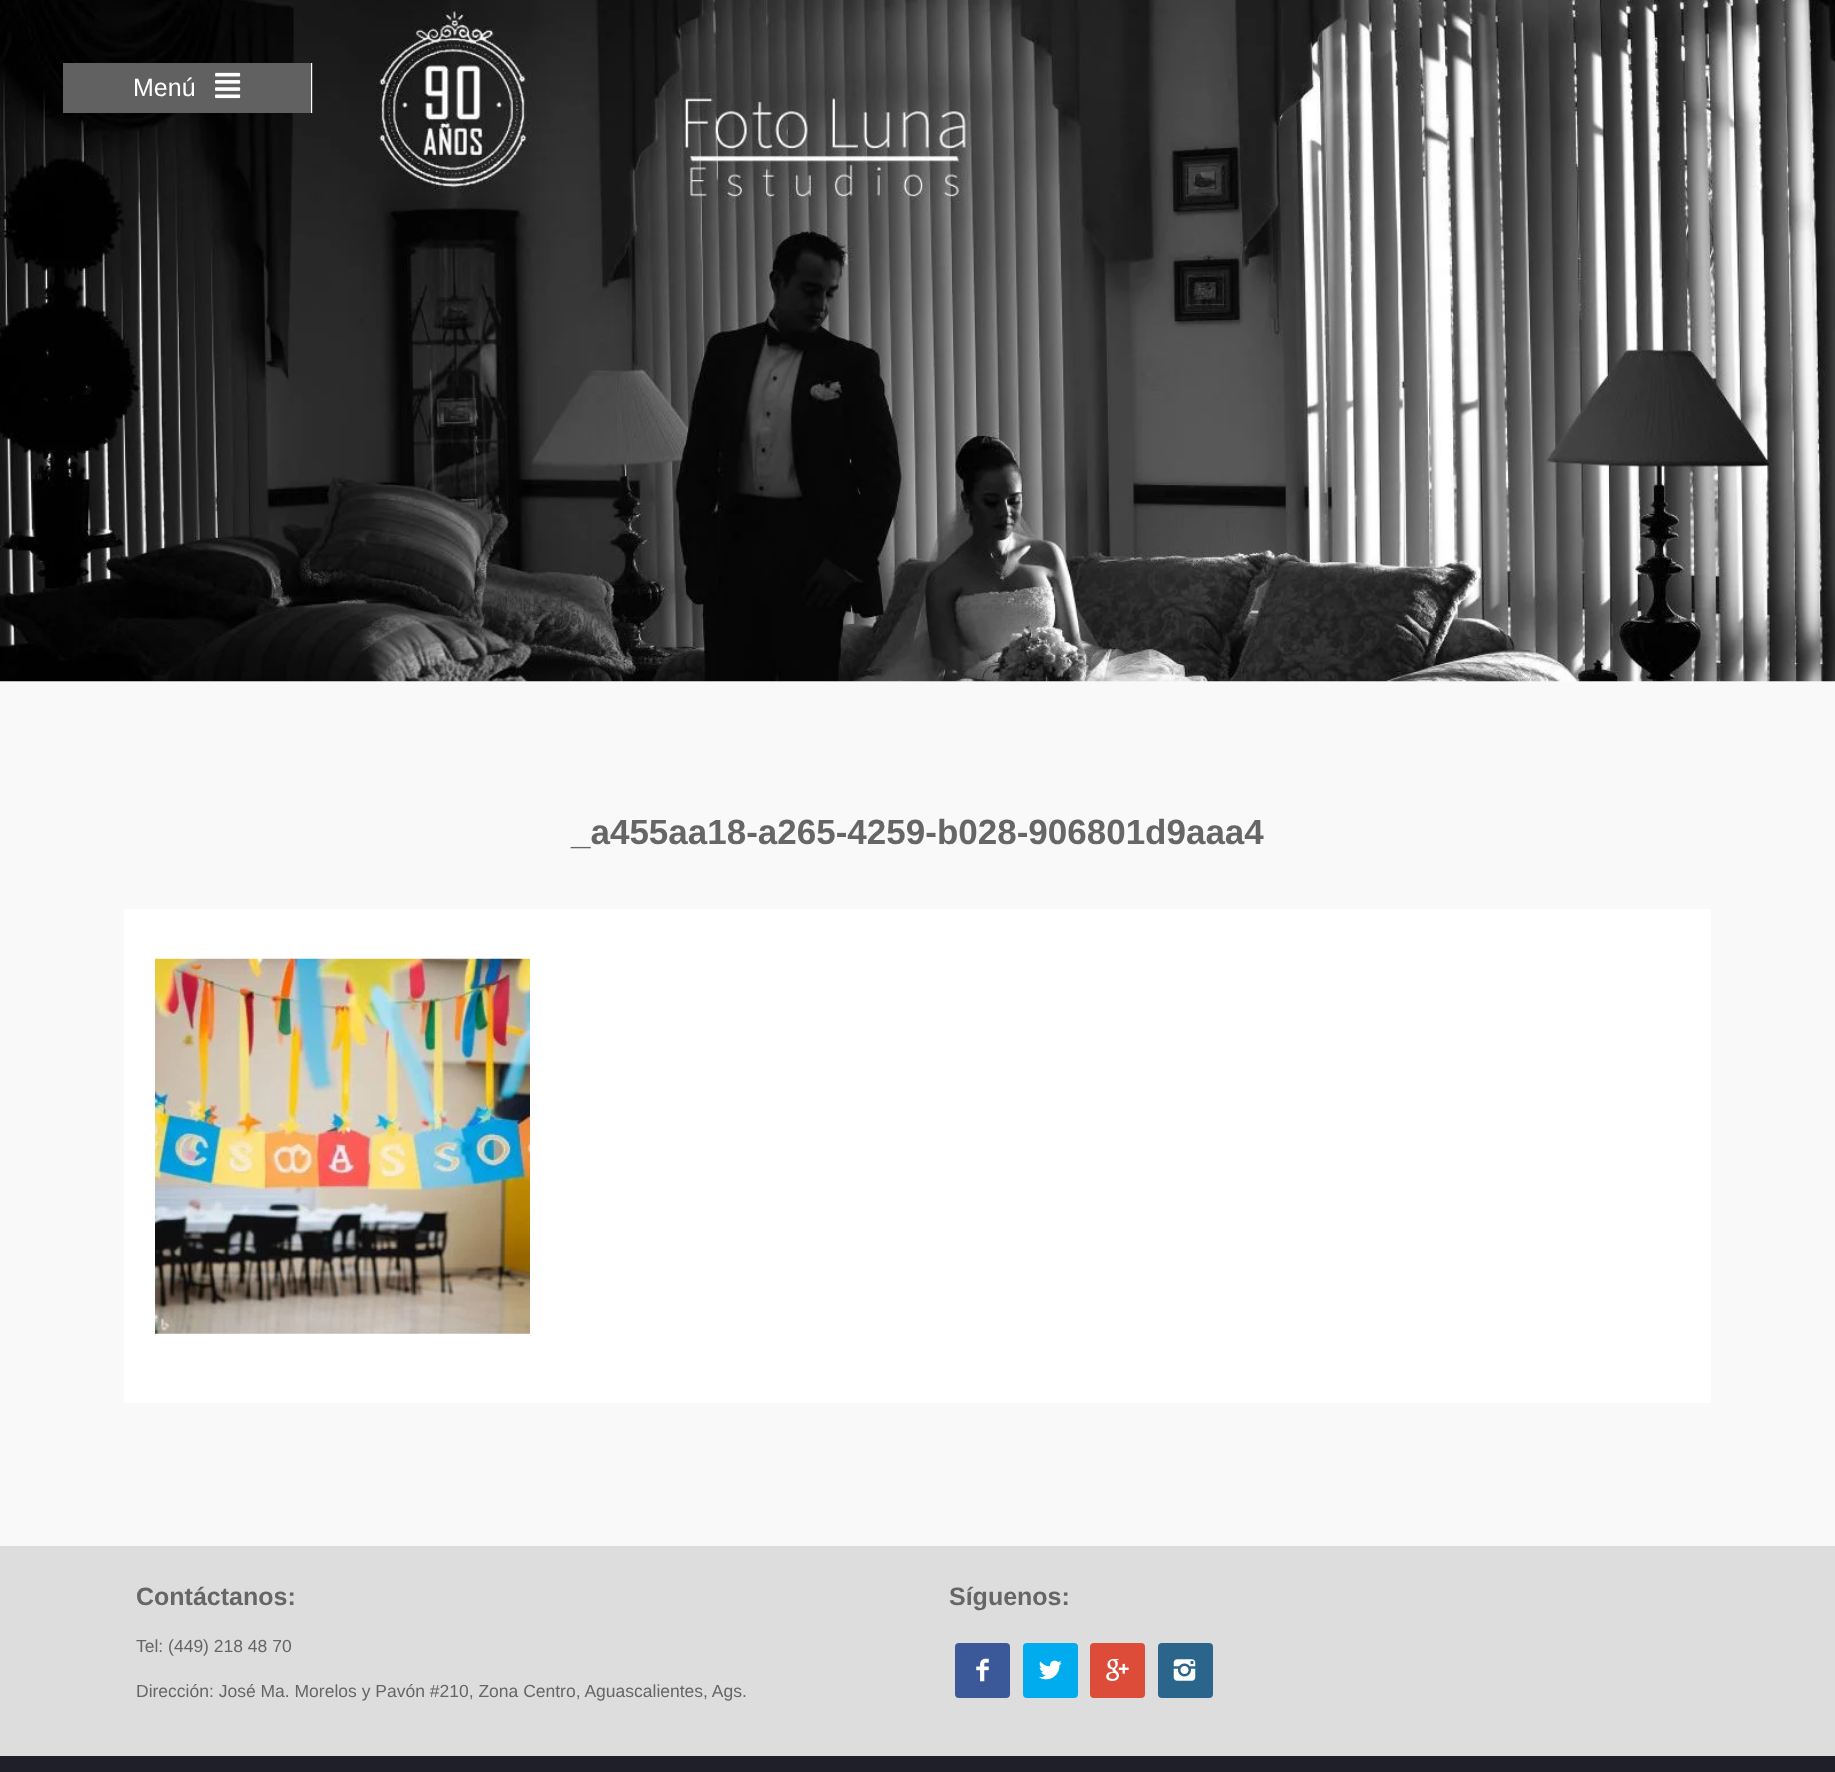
<?xml version="1.0" encoding="UTF-8"?>
<svg xmlns="http://www.w3.org/2000/svg" width="1835" height="1772">
    <defs>
        <filter id="blur1" x="-50%" y="-200%" width="200%" height="500%"><feGaussianBlur stdDeviation="0.5"/></filter>
    </defs>
    <rect width="100%" height="100%" fill="#F9F9F9"/>
    <image x="0" y="0" width="1835" height="682" href="img_01.png"/>
    <rect x="312" y="63" width="1" height="50" fill="#4B4B4B"/>
    <rect x="311" y="63" width="1" height="50" fill="#FFFFFF"/>
    <rect x="63" y="63" width="248" height="50" fill="#616161"/>
    <text x="133" y="96" font-family="Liberation Sans" font-size="25" fill="#FFFFFF">Menú</text>
    <image x="215" y="72" width="26" height="27" href="img_02.png"/>
    <text x="571" y="844" font-family="Liberation Sans" font-size="35" font-weight="700" fill="#666666">_a455aa18-a265-4259-b028-906801d9aaa4</text>
    <rect x="124" y="909" width="1587" height="494" fill="#DDDDDD" filter="url(#blur1)"/>
    <rect x="124" y="909" width="1587" height="494" fill="#FFFFFF"/>
    <image x="155" y="958" width="375" height="376" href="img_03.png"/>
    <rect x="0" y="1546" width="1835" height="210" fill="#DDDDDD"/>
    <text x="136" y="1605" font-family="Liberation Sans" font-size="25" font-weight="700" fill="#666666">Contáctanos:</text>
    <text x="136" y="1652" font-family="Liberation Sans" font-size="17.5" fill="#666666">Tel: (449) 218 48 70</text>
    <text x="136" y="1697" font-family="Liberation Sans" font-size="17.5" fill="#666666">Dirección: José Ma. Morelos y Pavón #210, Zona Centro, Aguascalientes, Ags.</text>
    <text x="949" y="1605" font-family="Liberation Sans" font-size="25" font-weight="700" fill="#666666">Síguenos:</text>
    <rect x="955" y="1643" width="55" height="55" rx="4" fill="#3B5998"/>
    <image x="976" y="1658" width="13" height="24" href="img_04.png"/>
    <rect x="1023" y="1643" width="55" height="55" rx="4" fill="#00ACED"/>
    <image x="1039" y="1660" width="23" height="20" href="img_05.png"/>
    <rect x="1090" y="1643" width="55" height="55" rx="4" fill="#DD4B39"/>
    <image x="1106" y="1659" width="23" height="22" href="img_06.png"/>
    <rect x="1158" y="1643" width="55" height="55" rx="4" fill="#2B658B"/>
    <image x="1173" y="1659" width="23" height="22" href="img_07.png"/>
    <rect x="0" y="1756" width="1835" height="16" fill="#1F1F29"/>
</svg>
